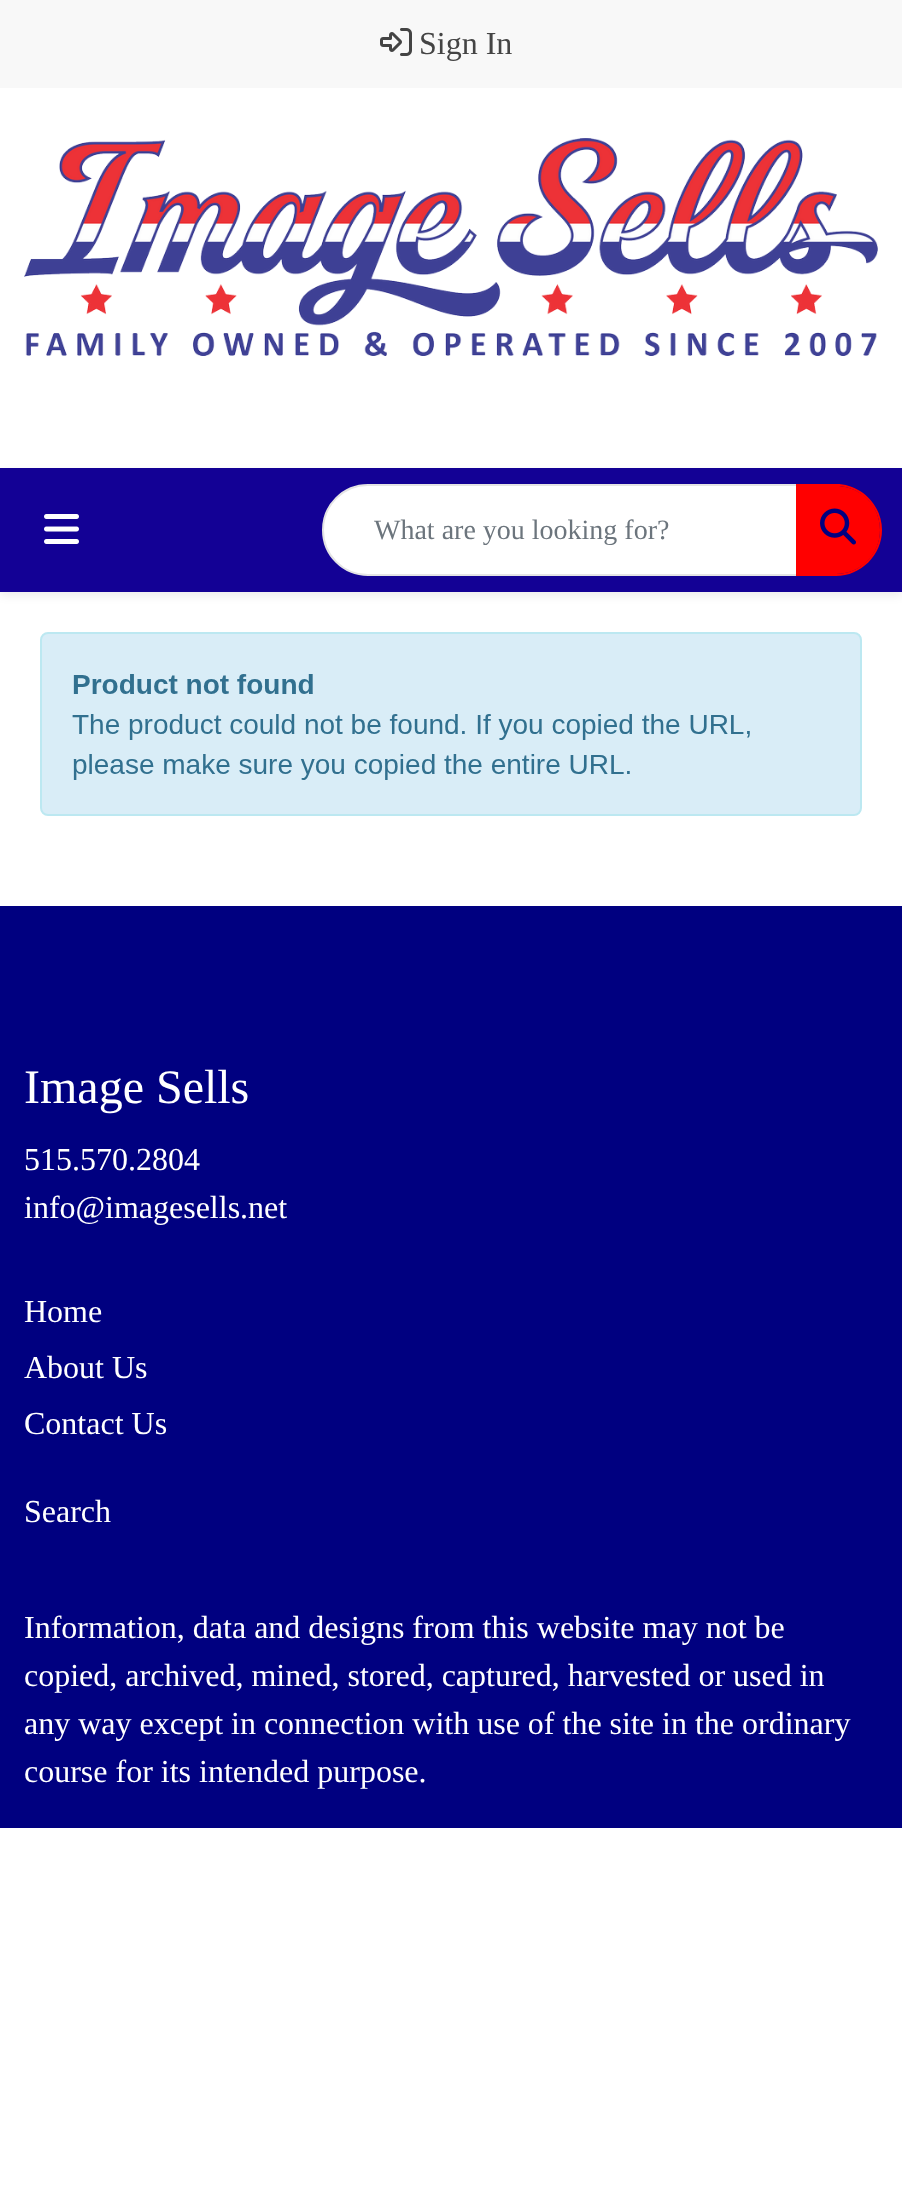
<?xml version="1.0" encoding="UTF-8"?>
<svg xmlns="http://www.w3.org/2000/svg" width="902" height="2211">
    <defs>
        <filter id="blur1" x="-50%" y="-200%" width="200%" height="500%"><feGaussianBlur stdDeviation="4"/></filter>
    </defs>
    <rect width="100%" height="100%" fill="#FFFFFF"/>
    <rect x="0" y="0" width="902" height="88" fill="#F8F8F8"/>
    <image x="380" y="28" width="32" height="28" href="img_01.png"/>
    <text x="419" y="54" font-family="Liberation Serif" font-size="32" fill="#444444">Sign In</text>
    <image x="24" y="138" width="854" height="218" href="img_02.png"/>
    <rect x="0" y="472" width="902" height="124" fill="#000000" fill-opacity="0.07" filter="url(#blur1)"/>
    <rect x="0" y="468" width="902" height="124" fill="#130195"/>
    <image x="44" y="514" width="35" height="30" href="img_03.png"/>
    <path d="M 368 485 H 797 V 575 H 368 C 343 575 323 555 323 530 C 323 505 343 485 368 485 Z" fill="#FFFFFF" stroke="#E4E4E4" stroke-width="2"/>
    <text x="374" y="539" font-family="Liberation Serif" font-size="28" fill="#6C757D">What are you looking for?</text>
    <path d="M 796 486 H 836 C 860.5 486 880 505.5 880 530 C 880 554.5 860.5 574 836 574 H 796 Z" fill="#FF0000"/>
    <path d="M 796 484 H 836 C 861 484 882 505 882 530 C 882 555 861 576 836 576 H 796 Z M 796 486 H 836 C 860 486 880 506 880 530 C 880 554 860 574 836 574 H 796 Z" fill="#FF0000" fill-rule="evenodd"/>
    <image x="820" y="508" width="36" height="37" href="img_04.png"/>
    <image x="40" y="632" width="822" height="184" href="img_05.png"/>
    <rect x="0" y="906" width="902" height="922" fill="#000080"/>
    <text x="24" y="1103" font-family="Liberation Serif" font-size="48" fill="#FFFFFF">Image Sells</text>
    <text font-family="Liberation Serif" font-size="32" fill="#FFFFFF">
        <tspan x="24" y="1170">515.570.2804</tspan>
        <tspan x="24" y="1218">info@imagesells.net</tspan>
    </text>
    <text font-family="Liberation Serif" font-size="32" fill="#FFFFFF">
        <tspan x="24" y="1322">Home</tspan>
        <tspan x="24" y="1378">About Us</tspan>
        <tspan x="24" y="1434">Contact Us</tspan>
    </text>
    <text x="24" y="1522" font-family="Liberation Serif" font-size="32" fill="#FFFFFF">Search</text>
    <text font-family="Liberation Serif" font-size="32" fill="#FFFFFF">
        <tspan x="24" y="1638">Information, data and designs from this website may not be</tspan>
        <tspan x="24" y="1686">copied, archived, mined, stored, captured, harvested or used in</tspan>
        <tspan x="24" y="1734">any way except in connection with use of the site in the ordinary</tspan>
        <tspan x="24" y="1782">course for its intended purpose.</tspan>
    </text>
</svg>
